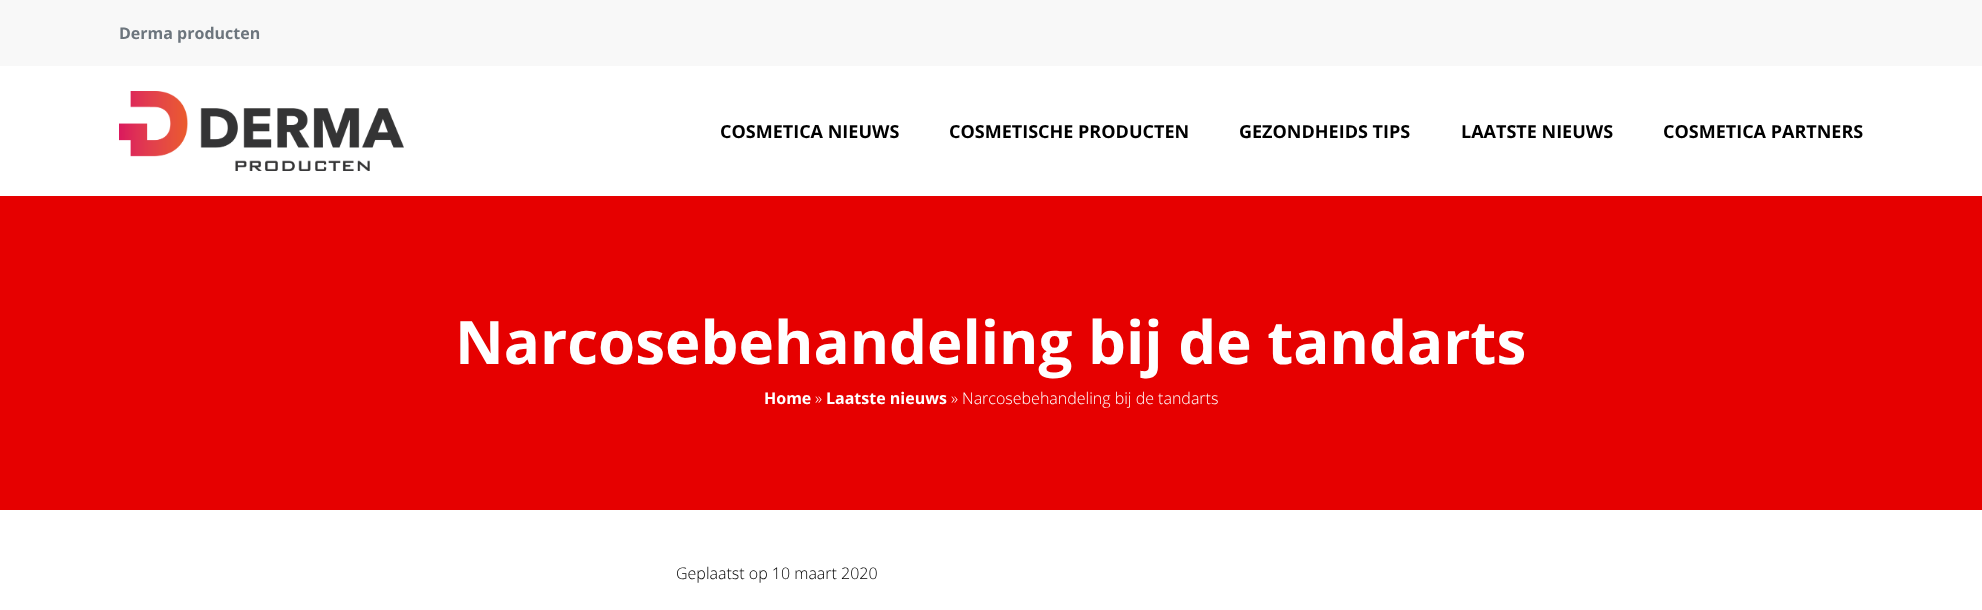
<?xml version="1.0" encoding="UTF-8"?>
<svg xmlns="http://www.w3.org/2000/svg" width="1982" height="610">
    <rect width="100%" height="100%" fill="#FFFFFF"/>
    <rect x="0" y="0" width="1982" height="66" fill="#F8F8F8"/>
    <text x="119" y="39" font-family="Open Sans" font-size="16" font-weight="700" fill="#6C757D">Derma producten</text>
    <image x="119" y="91" width="285" height="80" href="img_01.png"/>
    <text x="720" y="138" font-family="Open Sans" font-size="18" font-weight="700" fill="#000000">COSMETICA NIEUWS</text>
    <text x="949" y="138" font-family="Open Sans" font-size="18" font-weight="700" fill="#000000">COSMETISCHE PRODUCTEN</text>
    <text x="1239" y="138" font-family="Open Sans" font-size="18" font-weight="700" fill="#000000">GEZONDHEIDS TIPS</text>
    <text x="1461" y="138" font-family="Open Sans" font-size="18" font-weight="700" fill="#000000">LAATSTE NIEUWS</text>
    <text x="1663" y="138" font-family="Open Sans" font-size="18" font-weight="700" fill="#000000">COSMETICA PARTNERS</text>
    <rect x="0" y="196" width="1982" height="314" fill="#E60000"/>
    <text x="455" y="364" font-family="Open Sans" font-size="60" font-weight="700" fill="#FFFFFF">Narcosebehandeling bij de tandarts</text>
    <text x="764" y="404" font-family="Open Sans" font-size="16" font-weight="700" fill="#FFFFFF">Home</text>
    <text x="815" y="404" font-family="Open Sans" font-size="16" font-weight="300" fill="#FFFFFF">»</text>
    <text x="826" y="404" font-family="Open Sans" font-size="16" font-weight="700" fill="#FFFFFF">Laatste nieuws</text>
    <text x="951" y="404" font-family="Open Sans" font-size="16" font-weight="300" fill="#FFFFFF">» Narcosebehandeling bij de tandarts</text>
    <text x="676" y="579" font-family="Open Sans" font-size="16" font-weight="300" fill="#000000">Geplaatst op 10 maart 2020</text>
</svg>
